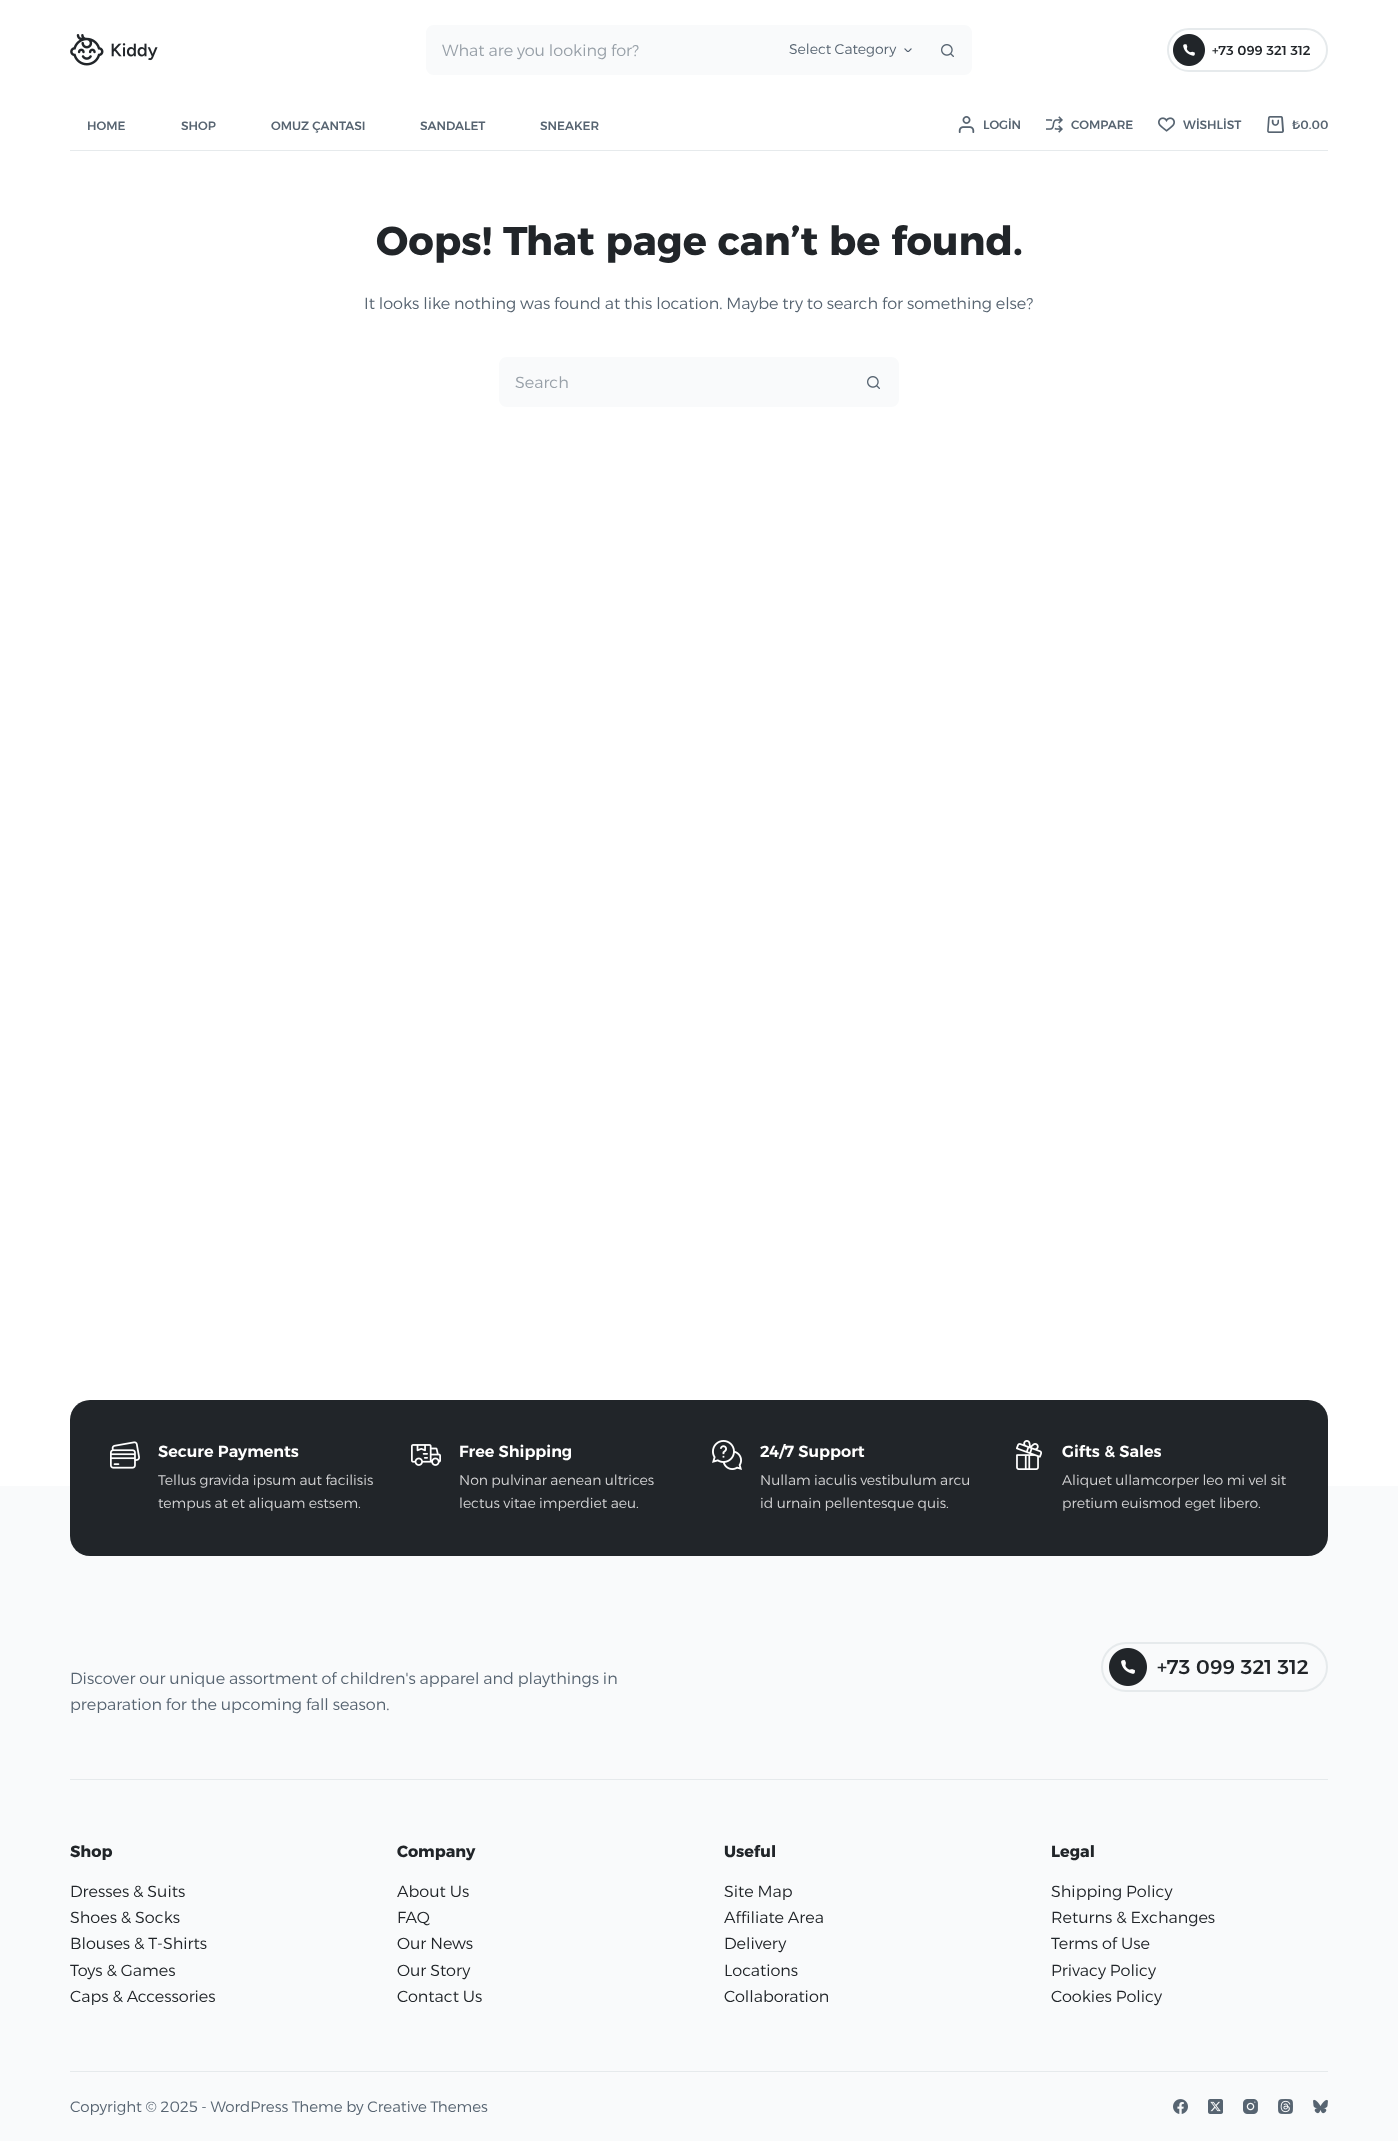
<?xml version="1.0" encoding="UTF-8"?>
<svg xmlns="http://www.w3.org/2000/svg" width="1398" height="2141">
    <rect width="100%" height="100%" fill="#FFFFFF"/>
    <image x="70" y="34" width="88" height="32" href="img_01.png"/>
    <path d="M 434 25 H 773 V 75 H 434 C 429.5 75 426 71.5 426 67 V 33 C 426 28.5 429.5 25 434 25 Z" fill="#F9FAFB"/>
    <text x="442" y="56" font-family="Alexandria" font-size="16" font-weight="300" fill="#98A0A8">What are you looking for?</text>
    <rect x="773" y="25" width="149" height="50" fill="#F9FAFB"/>
    <image x="904" y="48" width="8" height="4" href="img_02.png"/>
    <text x="789" y="54" font-family="Alexandria" font-size="14" font-weight="300" fill="#576471">Select Category</text>
    <path d="M 922 25 H 964 C 968.5 25 972 28.5 972 33 V 67 C 972 71.5 968.5 75 964 75 H 922 Z" fill="#F9FAFB"/>
    <image x="941" y="44" width="13" height="13" href="img_03.png"/>
    <rect x="1168" y="29" width="159" height="42" rx="21" fill="none" stroke="#E6EAEC" stroke-width="2"/>
    <image x="1173" y="34" width="32" height="32" href="img_04.png"/>
    <text x="1212" y="55" font-family="Alexandria" font-size="13" font-weight="500" fill="#212529">+73 099 321 312</text>
    <rect x="70" y="150" width="1258" height="1" fill="#E6EAEC"/>
    <text x="87" y="130" font-family="Alexandria" font-size="12" font-weight="500" fill="#576471">HOME</text>
    <text x="181" y="130" font-family="Alexandria" font-size="12" font-weight="500" fill="#576471">SHOP</text>
    <text x="271" y="130" font-family="Alexandria" font-size="12" font-weight="500" fill="#576471">OMUZ ÇANTASI</text>
    <text x="420" y="130" font-family="Alexandria" font-size="12" font-weight="500" fill="#576471">SANDALET</text>
    <text x="540" y="130" font-family="Alexandria" font-size="12" font-weight="500" fill="#576471">SNEAKER</text>
    <image x="958" y="116" width="17" height="17" href="img_05.png"/>
    <text x="983" y="129" font-family="Alexandria" font-size="12" font-weight="500" fill="#576471">LOGİN</text>
    <image x="1046" y="116" width="17" height="17" href="img_06.png"/>
    <text x="1071" y="129" font-family="Alexandria" font-size="12" font-weight="500" fill="#576471">COMPARE</text>
    <image x="1158" y="117" width="17" height="15" href="img_07.png"/>
    <text x="1183" y="129" font-family="Alexandria" font-size="12" font-weight="500" fill="#576471">WİSHLİST</text>
    <image x="1267" y="116" width="17" height="17" href="img_08.png"/>
    <text x="1292" y="129" font-family="Alexandria" font-size="12" font-weight="500" fill="#576471">₺0.00</text>
    <text x="376" y="255" font-family="Alexandria" font-size="40" font-weight="700" fill="#212529">Oops! That page can’t be found.</text>
    <text x="364" y="309" font-family="Alexandria" font-size="16" font-weight="300" fill="#576471">It looks like nothing was found at this location. Maybe try to search for something else?</text>
    <path d="M 507 357 H 849 V 407 H 507 C 502.5 407 499 403.5 499 399 V 365 C 499 360.5 502.5 357 507 357 Z" fill="#F9FAFB"/>
    <text x="515" y="388" font-family="Alexandria" font-size="16" font-weight="300" fill="#98A0A8">Search</text>
    <path d="M 849 357 H 891 C 895.5 357 899 360.5 899 365 V 399 C 899 403.5 895.5 407 891 407 H 849 Z" fill="#F9FAFB"/>
    <image x="867" y="376" width="13" height="13" href="img_03.png"/>
    <rect x="0" y="1486" width="1398" height="655" fill="#F9FAFB"/>
    <rect x="70" y="1400" width="1258" height="156" rx="20" fill="#212529"/>
    <image x="110" y="1441" width="30" height="28" href="img_09.png"/>
    <text x="158" y="1457" font-family="Alexandria" font-size="16" font-weight="600" fill="#FFFFFF">Secure Payments</text>
    <text font-family="Alexandria" font-size="14" font-weight="300" fill="#D3D3D4">
        <tspan x="158" y="1485">Tellus gravida ipsum aut facilisis</tspan>
        <tspan x="158" y="1508">tempus at et aliquam estsem.</tspan>
    </text>
    <image x="411" y="1444" width="30" height="22" href="img_10.png"/>
    <text x="459" y="1457" font-family="Alexandria" font-size="16" font-weight="600" fill="#FFFFFF">Free Shipping</text>
    <text font-family="Alexandria" font-size="14" font-weight="300" fill="#D3D3D4">
        <tspan x="459" y="1485">Non pulvinar aenean ultrices</tspan>
        <tspan x="459" y="1508">lectus vitae imperdiet aeu.</tspan>
    </text>
    <image x="712" y="1440" width="30" height="30" href="img_11.png"/>
    <text x="760" y="1457" font-family="Alexandria" font-size="16" font-weight="600" fill="#FFFFFF">24/7 Support</text>
    <text font-family="Alexandria" font-size="14" font-weight="300" fill="#D3D3D4">
        <tspan x="760" y="1485">Nullam iaculis vestibulum arcu</tspan>
        <tspan x="760" y="1508">id urnain pellentesque quis.</tspan>
    </text>
    <image x="1016" y="1440" width="26" height="30" href="img_12.png"/>
    <text x="1062" y="1457" font-family="Alexandria" font-size="16" font-weight="600" fill="#FFFFFF">Gifts &amp; Sales</text>
    <text font-family="Alexandria" font-size="14" font-weight="300" fill="#D3D3D4">
        <tspan x="1062" y="1485">Aliquet ullamcorper leo mi vel sit</tspan>
        <tspan x="1062" y="1508">pretium euismod eget libero.</tspan>
    </text>
    <rect x="70" y="1779" width="1258" height="1" fill="#E6EAEC"/>
    <rect x="1102" y="1643" width="225" height="48" rx="24" fill="none" stroke="#E6EAEC" stroke-width="2"/>
    <image x="1109" y="1648" width="38" height="38" href="img_13.png"/>
    <text x="1157" y="1674" font-family="Alexandria" font-size="20" font-weight="500" fill="#212529">+73 099 321 312</text>
    <text font-family="Alexandria" font-size="16" font-weight="300" fill="#576471">
        <tspan x="70" y="1684">Discover our unique assortment of children's apparel and playthings in</tspan>
        <tspan x="70" y="1710">preparation for the upcoming fall season.</tspan>
    </text>
    <text x="70" y="1857" font-family="Alexandria" font-size="16" font-weight="700" fill="#212529">Shop</text>
    <text font-family="Alexandria" font-size="16" font-weight="300" fill="#212529">
        <tspan x="70" y="1897">Dresses &amp; Suits</tspan>
        <tspan x="70" y="1923">Shoes &amp; Socks</tspan>
        <tspan x="70" y="1949">Blouses &amp; T-Shirts</tspan>
        <tspan x="70" y="1976">Toys &amp; Games</tspan>
        <tspan x="70" y="2002">Caps &amp; Accessories</tspan>
    </text>
    <text x="397" y="1857" font-family="Alexandria" font-size="16" font-weight="700" fill="#212529">Company</text>
    <text font-family="Alexandria" font-size="16" font-weight="300" fill="#212529">
        <tspan x="397" y="1897">About Us</tspan>
        <tspan x="397" y="1923">FAQ</tspan>
        <tspan x="397" y="1949">Our News</tspan>
        <tspan x="397" y="1976">Our Story</tspan>
        <tspan x="397" y="2002">Contact Us</tspan>
    </text>
    <text x="724" y="1857" font-family="Alexandria" font-size="16" font-weight="700" fill="#212529">Useful</text>
    <text font-family="Alexandria" font-size="16" font-weight="300" fill="#212529">
        <tspan x="724" y="1897">Site Map</tspan>
        <tspan x="724" y="1923">Affiliate Area</tspan>
        <tspan x="724" y="1949">Delivery</tspan>
        <tspan x="724" y="1976">Locations</tspan>
        <tspan x="724" y="2002">Collaboration</tspan>
    </text>
    <text x="1051" y="1857" font-family="Alexandria" font-size="16" font-weight="700" fill="#212529">Legal</text>
    <text font-family="Alexandria" font-size="16" font-weight="300" fill="#212529">
        <tspan x="1051" y="1897">Shipping Policy</tspan>
        <tspan x="1051" y="1923">Returns &amp; Exchanges</tspan>
        <tspan x="1051" y="1949">Terms of Use</tspan>
        <tspan x="1051" y="1976">Privacy Policy</tspan>
        <tspan x="1051" y="2002">Cookies Policy</tspan>
    </text>
    <rect x="70" y="2071" width="1258" height="1" fill="#E6EAEC"/>
    <text x="70" y="2112" font-family="Alexandria" font-size="15" font-weight="300" fill="#576471">Copyright © 2025 - WordPress Theme by Creative Themes</text>
    <image x="1173" y="2099" width="15" height="15" href="img_14.png"/>
    <image x="1208" y="2099" width="15" height="15" href="img_15.png"/>
    <image x="1243" y="2099" width="15" height="15" href="img_16.png"/>
    <image x="1278" y="2099" width="15" height="15" href="img_17.png"/>
    <image x="1313" y="2099" width="15" height="15" href="img_18.png"/>
</svg>
